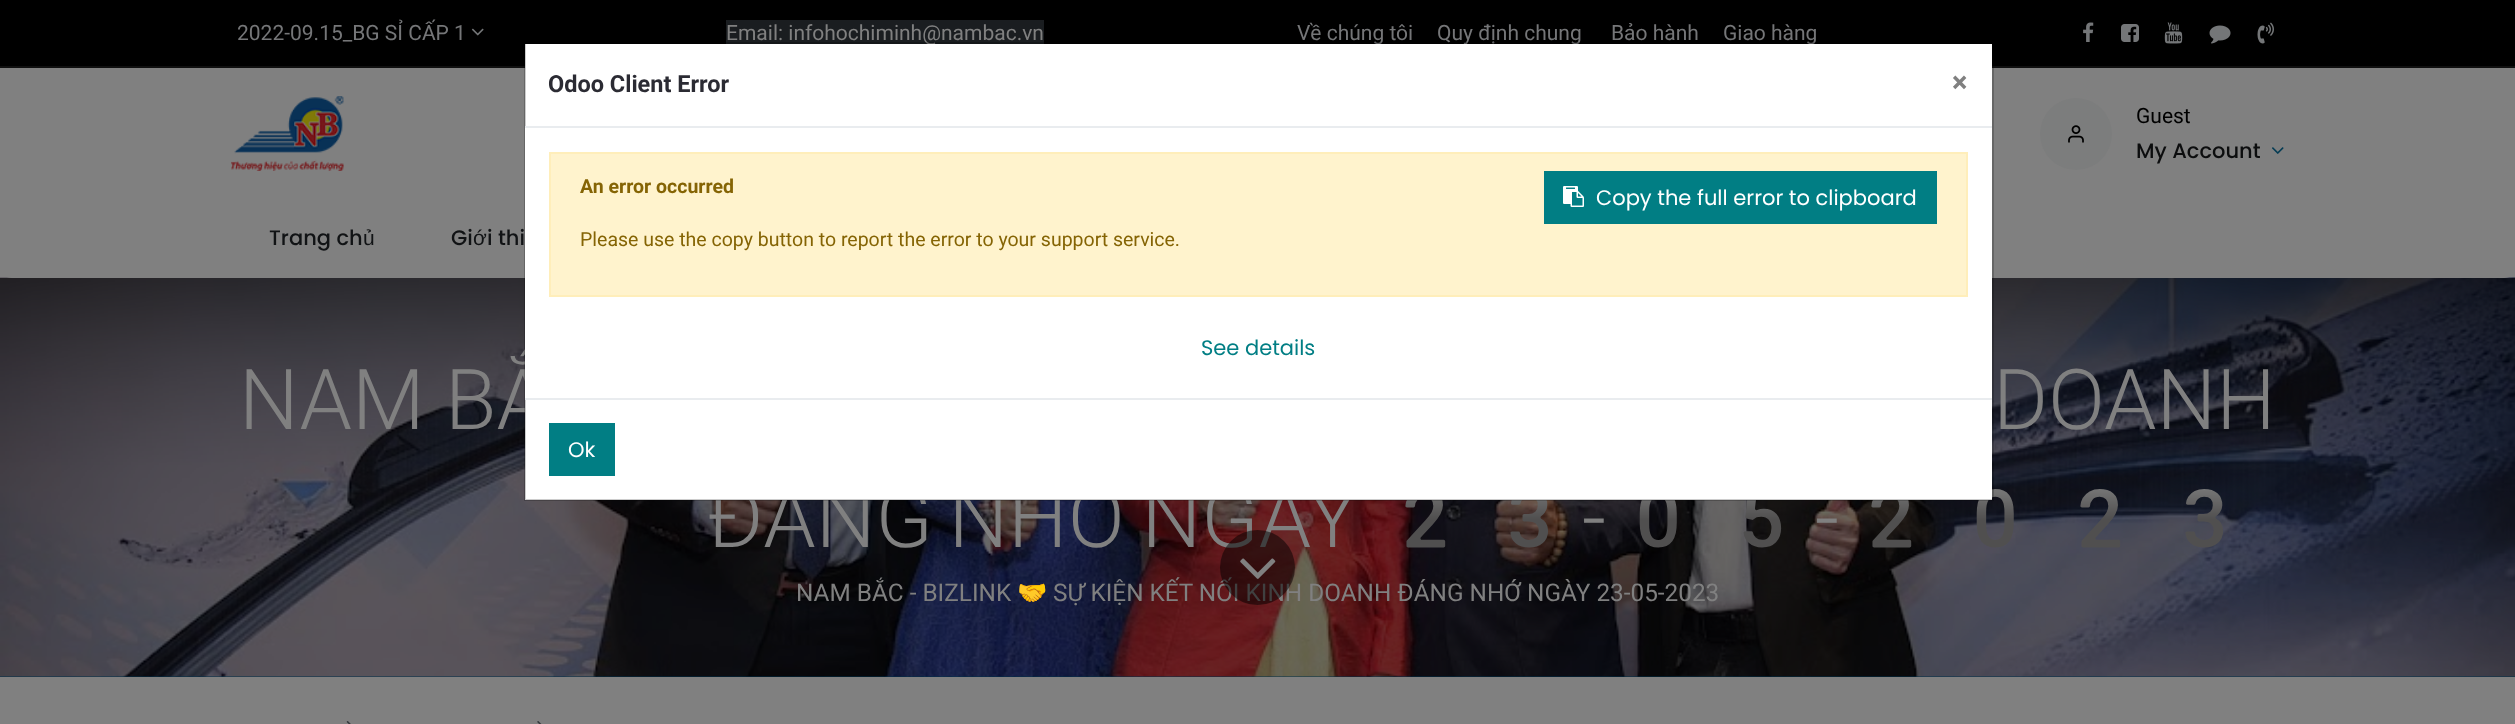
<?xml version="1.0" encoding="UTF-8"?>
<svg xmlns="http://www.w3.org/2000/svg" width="2515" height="724">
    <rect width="100%" height="100%" fill="#808080"/>
    <rect x="0" y="0" width="2515" height="66" fill="#000000"/>
    <rect x="0" y="66" width="2515" height="2" fill="#101010"/>
    <text x="237" y="40" font-family="Roboto" font-size="21" fill="#757678">2022-09.15_BG SỈ CẤP 1</text>
    <image x="471" y="28" width="13" height="8" href="img_01.png"/>
    <rect x="726" y="20" width="318" height="24" fill="#1A1D20"/>
    <text x="726" y="40" font-family="Roboto" font-size="21" fill="#808080">Email: infohochiminh@nambac.vn</text>
    <text x="1297" y="40" font-family="Roboto" font-size="21" fill="#757678">Về chúng tôi</text>
    <text x="1437" y="40" font-family="Roboto" font-size="21" fill="#757678">Quy định chung</text>
    <text x="1611" y="40" font-family="Roboto" font-size="21" fill="#757678">Bảo hành</text>
    <text x="1723" y="40" font-family="Roboto" font-size="21" fill="#757678">Giao hàng</text>
    <image x="2083" y="22" width="11" height="20" href="img_02.png"/>
    <image x="2121" y="24" width="18" height="18" href="img_03.png"/>
    <image x="2164" y="22" width="19" height="22" href="img_04.png"/>
    <image x="2209" y="25" width="22" height="19" href="img_05.png"/>
    <image x="2257" y="22" width="17" height="22" href="img_06.png"/>
    <image x="231" y="96" width="113" height="75" href="img_07.png"/>
    <circle cx="2076" cy="134" r="36" fill="#7C7D7D"/>
    <image x="2068" y="125" width="16" height="18" href="img_08.png"/>
    <text x="2136" y="123" font-family="Roboto" font-size="21" fill="#000000">Guest</text>
    <text x="2136" y="158" font-family="Poppins" font-size="21" font-weight="500" fill="#0C0D0E">My Account</text>
    <image x="2272" y="147" width="12" height="7" href="img_09.png"/>
    <rect x="0" y="676" width="2515" height="1" fill="#00304B"/>
    <image x="0" y="277" width="2515" height="400" href="img_10.png"/>
    <rect x="0" y="200" width="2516" height="78" rx="12" fill="#808080"/>
    <text x="269" y="245" font-family="Poppins" font-size="21" font-weight="500" fill="#111315">Trang ch</text>
    <text x="363" y="245" font-family="Liberation Sans" font-size="21" fill="#111315">ủ</text>
    <text x="451" y="245" font-family="Poppins" font-size="21" font-weight="500" fill="#111315">Gi</text>
    <text x="473" y="245" font-family="Liberation Sans" font-size="21" fill="#111315">ớ</text>
    <text x="487" y="245" font-family="Poppins" font-size="21" font-weight="500" fill="#111315">i thi</text>
    <text x="239" y="429" font-family="Roboto" font-size="84" font-weight="300" fill="#808080">NAM BẮ</text>
    <text x="1993" y="429" font-family="Roboto" font-size="84" font-weight="300" fill="#808080">DOANH</text>
    <text x="707" y="547" word-spacing="-5" font-family="Roboto" font-size="84" font-weight="300" fill="#808080">ĐÁNG NHỚ NGÀY</text>
    <text x="1373" y="547" font-family="Noto Color Emoji" font-size="84" fill="#808080">23</text>
    <text x="1582" y="547" font-family="Roboto" font-size="84" font-weight="300" fill="#808080">-</text>
    <text x="1606" y="547" font-family="Noto Color Emoji" font-size="84" fill="#808080">05</text>
    <text x="1815" y="547" font-family="Roboto" font-size="84" font-weight="300" fill="#808080">-</text>
    <text x="1839" y="547" font-family="Noto Color Emoji" font-size="84" fill="#808080">2023</text>
    <text x="796" y="601" font-family="Roboto" font-size="24.35" fill="#808080">NAM BẮC - BIZLINK</text>
    <text x="1017" y="601" font-family="'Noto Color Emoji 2'" font-size="24.35" fill="#808080">🤝</text>
    <text x="1053" y="601" font-family="Roboto" font-size="24.35" fill="#808080">SỰ KIỆN KẾT NỐI KINH DOANH ĐÁNG NHỚ NGÀY 23-05-2023</text>
    <circle cx="1257.5" cy="567.5" r="37.5" fill="#000000" fill-opacity="0.5"/>
    <image x="1240" y="558" width="36" height="21" href="img_11.png"/>
    <image x="346" y="721" width="5" height="3" href="img_12.png"/>
    <image x="537" y="721" width="5" height="3" href="img_13.png"/>
    <rect x="525" y="44" width="1467" height="456" fill="#FFFFFF"/>
    <rect x="525" y="43" width="1468" height="457" fill="none" stroke="#000000" stroke-opacity="0.2" stroke-width="2"/>
    <rect x="525" y="126" width="1467" height="2" fill="#E9ECEF"/>
    <text x="548" y="92" font-family="Roboto" font-size="23.5" font-weight="700" fill="#2B2B33">Odoo Client Error</text>
    <text x="1952" y="92" font-family="Roboto" font-size="29" font-weight="700" fill="#808080">×</text>
    <rect x="525" y="128" width="1" height="270" fill="#FFFFFF"/>
    <rect x="550" y="153" width="1417" height="143" fill="#FFF3CD" stroke="#FFEEBA" stroke-width="2"/>
    <text x="580" y="193" font-family="Roboto" font-size="19.5" font-weight="700" fill="#856404">An error occurred</text>
    <rect x="1544" y="171" width="393" height="53" fill="#017E84"/>
    <image x="1563" y="186" width="21" height="21" href="img_14.png"/>
    <text x="1596" y="205" font-family="Poppins" font-size="21" fill="#FFFFFF">Copy the full error to clipboard</text>
    <text x="580" y="246" font-family="Roboto" font-size="19.5" fill="#856404">Please use the copy button to report the error to your support service.</text>
    <text x="1201" y="355" font-family="Poppins" font-size="21" fill="#017E84">See details</text>
    <rect x="525" y="398" width="1467" height="2" fill="#E9ECEF"/>
    <rect x="549" y="423" width="66" height="53" fill="#017E84"/>
    <text x="568" y="457" font-family="Poppins" font-size="21" fill="#FFFFFF">Ok</text>
</svg>
